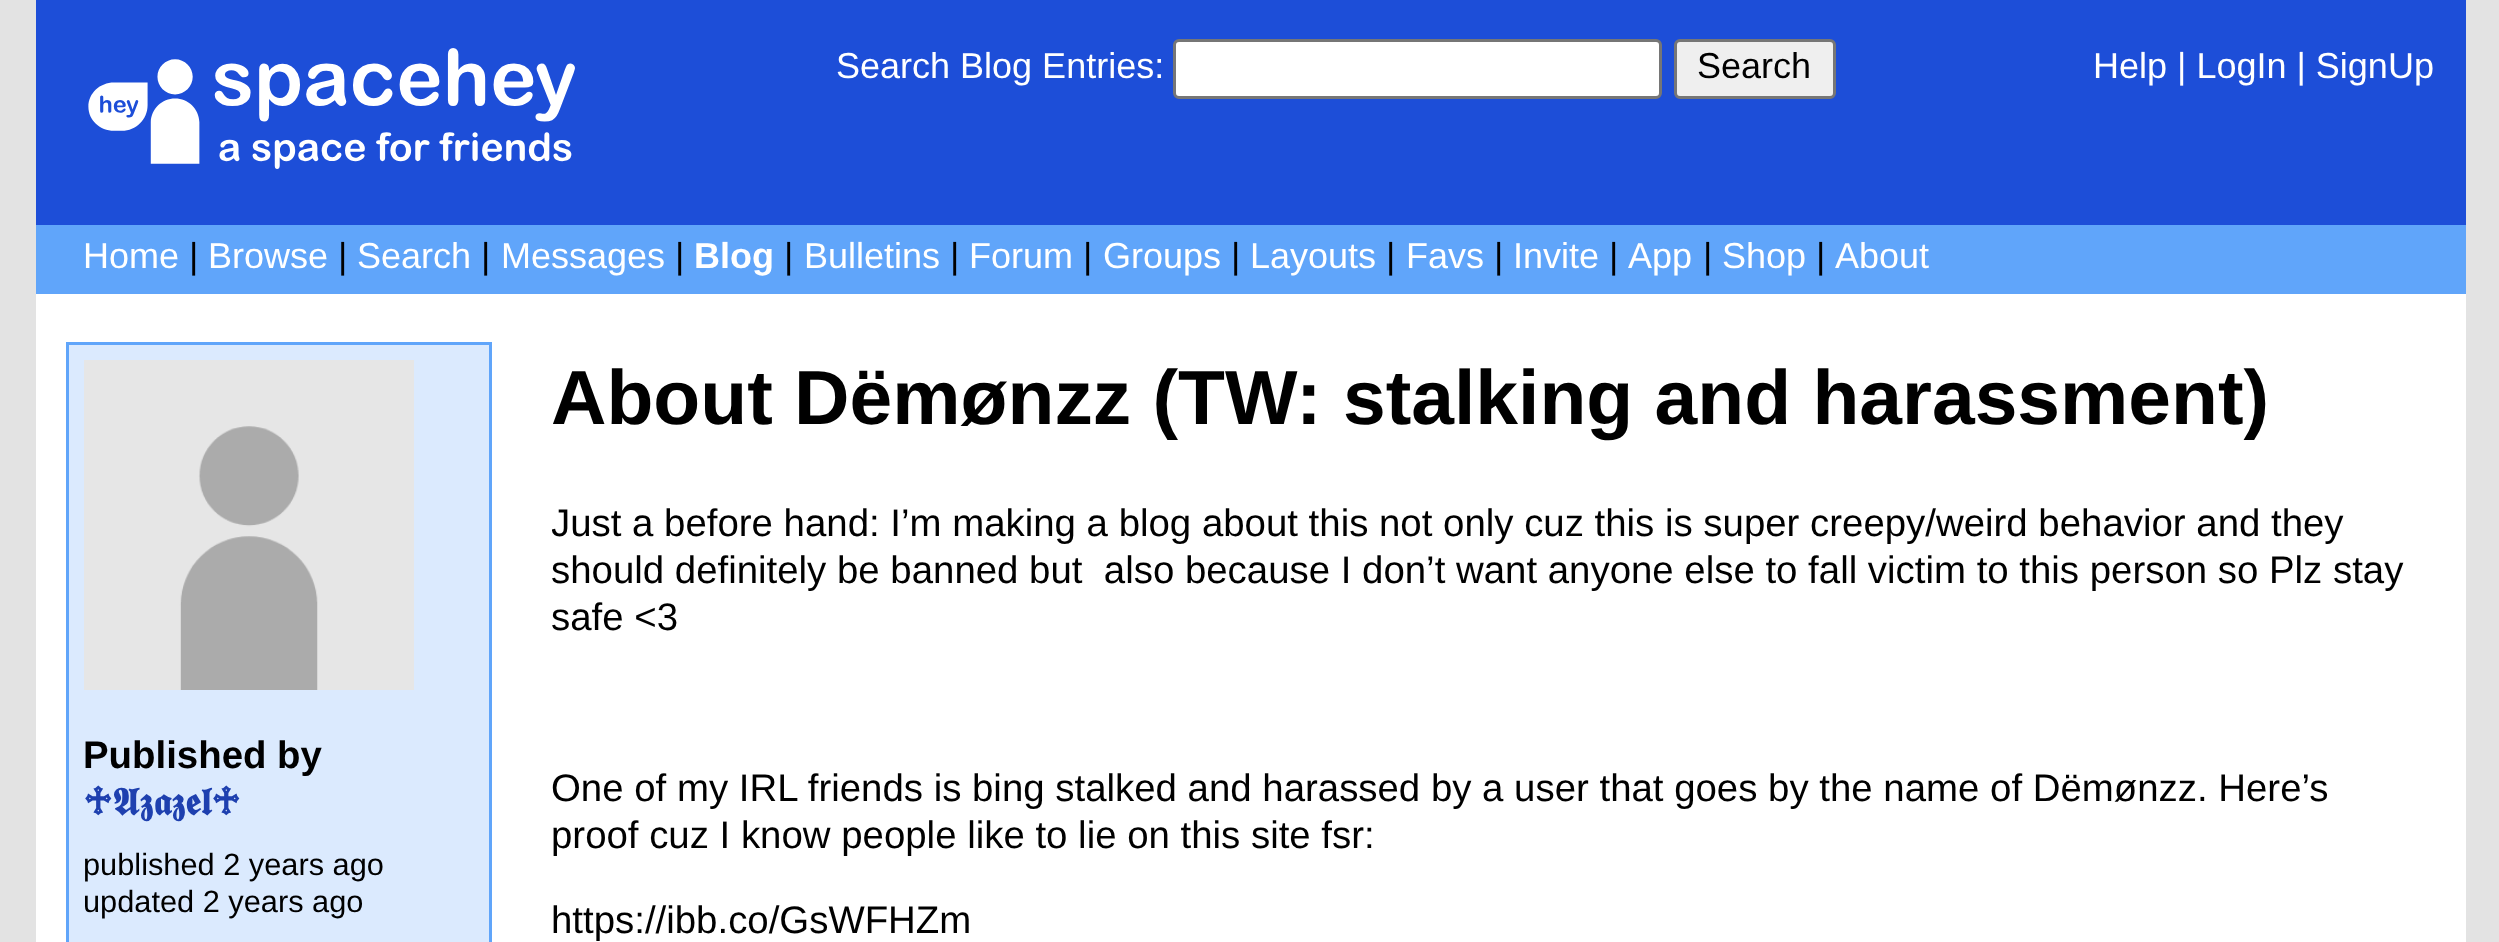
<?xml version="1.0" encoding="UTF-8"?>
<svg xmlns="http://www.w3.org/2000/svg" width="2499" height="942">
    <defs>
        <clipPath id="clip1"><rect x="552" y="462" width="1884" height="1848"/></clipPath>
    </defs>
    <rect width="100%" height="100%" fill="#E3E3E3"/>
    <rect x="36" y="0" width="2430" height="225" fill="#1D4ED8"/>
    <image x="88" y="48" width="487" height="121" href="img_01.png"/>
    <text x="836" y="78" font-family="Liberation Sans" font-size="36" fill="#FFFFFF">Search Blog Entries:</text>
    <rect x="1174.5" y="40.5" width="486" height="57" rx="4.5" fill="#FFFFFF" stroke="#767676" stroke-width="3"/>
    <rect x="1675.5" y="40.5" width="159" height="57" rx="4.5" fill="#EFEFEF" stroke="#767676" stroke-width="3"/>
    <text x="1697" y="78" font-family="Liberation Sans" font-size="36" fill="#000000">Search</text>
    <text x="2093" y="78" font-family="Liberation Sans" font-size="36" fill="#FFFFFF">Help | LogIn | SignUp</text>
    <rect x="36" y="225" width="2430" height="69" fill="#60A5FA"/>
    <text x="83" y="268" font-family="Liberation Sans" font-size="36" fill="#FFFFFF">Home</text>
    <text x="189" y="268" font-family="Liberation Sans" font-size="36" fill="#000000">|</text>
    <text x="208" y="268" font-family="Liberation Sans" font-size="36" fill="#FFFFFF">Browse</text>
    <text x="338" y="268" font-family="Liberation Sans" font-size="36" fill="#000000">|</text>
    <text x="357" y="268" font-family="Liberation Sans" font-size="36" fill="#FFFFFF">Search</text>
    <text x="481" y="268" font-family="Liberation Sans" font-size="36" fill="#000000">|</text>
    <text x="501" y="268" font-family="Liberation Sans" font-size="36" fill="#FFFFFF">Messages</text>
    <text x="675" y="268" font-family="Liberation Sans" font-size="36" fill="#000000">|</text>
    <text x="694" y="268" font-family="Liberation Sans" font-size="36" font-weight="700" fill="#FFFFFF">Blog</text>
    <text x="784" y="268" font-family="Liberation Sans" font-size="36" fill="#000000">|</text>
    <text x="804" y="268" font-family="Liberation Sans" font-size="36" fill="#FFFFFF">Bulletins</text>
    <text x="950" y="268" font-family="Liberation Sans" font-size="36" fill="#000000">|</text>
    <text x="969" y="268" font-family="Liberation Sans" font-size="36" fill="#FFFFFF">Forum</text>
    <text x="1083" y="268" font-family="Liberation Sans" font-size="36" fill="#000000">|</text>
    <text x="1103" y="268" font-family="Liberation Sans" font-size="36" fill="#FFFFFF">Groups</text>
    <text x="1231" y="268" font-family="Liberation Sans" font-size="36" fill="#000000">|</text>
    <text x="1250" y="268" font-family="Liberation Sans" font-size="36" fill="#FFFFFF">Layouts</text>
    <text x="1386" y="268" font-family="Liberation Sans" font-size="36" fill="#000000">|</text>
    <text x="1406" y="268" font-family="Liberation Sans" font-size="36" fill="#FFFFFF">Favs</text>
    <text x="1494" y="268" font-family="Liberation Sans" font-size="36" fill="#000000">|</text>
    <text x="1513" y="268" font-family="Liberation Sans" font-size="36" fill="#FFFFFF">Invite</text>
    <text x="1609" y="268" font-family="Liberation Sans" font-size="36" fill="#000000">|</text>
    <text x="1628" y="268" font-family="Liberation Sans" font-size="36" fill="#FFFFFF">App</text>
    <text x="1703" y="268" font-family="Liberation Sans" font-size="36" fill="#000000">|</text>
    <text x="1722" y="268" font-family="Liberation Sans" font-size="36" fill="#FFFFFF">Shop</text>
    <text x="1816" y="268" font-family="Liberation Sans" font-size="36" fill="#000000">|</text>
    <text x="1835" y="268" font-family="Liberation Sans" font-size="36" fill="#FFFFFF">About</text>
    <rect x="36" y="294" width="2430" height="648" fill="#FFFFFF"/>
    <rect x="67.5" y="343.5" width="423" height="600" fill="#DBEAFE" stroke="#60A5FA" stroke-width="3"/>
    <image x="84" y="360" width="330" height="330" href="img_02.png"/>
    <text x="83" y="768" font-family="Liberation Sans" font-size="38.4" font-weight="700" fill="#000000">Published by</text>
    <text x="83" y="815" font-family="DejaVu Sans" font-size="38.4" font-weight="700" fill="#1E40AF">♱</text>
    <text x="112" y="815" font-family="FreeSerif" font-size="38.4" font-weight="700" fill="#1E40AF">𝕬𝖟𝖆𝖟𝖊𝖑</text>
    <text x="211" y="815" font-family="DejaVu Sans" font-size="38.4" font-weight="700" fill="#1E40AF">♱</text>
    <text font-family="Liberation Sans" font-size="30.75" fill="#000000">
        <tspan x="83" y="875">published 2 years ago</tspan>
        <tspan x="83" y="912">updated 2 years ago</tspan>
    </text>
    <text x="551" y="424" font-family="Liberation Sans" font-size="76.8" font-weight="700" fill="#000000">About Dëmønzz (TW: stalking and harassment)</text>
    <g clip-path="url(#clip1)">
        <text x="551" y="536" font-family="Liberation Sans" font-size="38.4" fill="#000000">Just a before hand: I’m making a blog about this not only cuz this is super creepy/weird behavior and they</text>
    </g>
    <text font-family="Liberation Sans" font-size="38.4" fill="#000000" xml:space="preserve"><tspan x="551" y="583">should definitely be banned but  also because I don’t want anyone else to fall victim to this person so Plz stay</tspan><tspan x="551" y="630">safe &lt;3</tspan></text>
    <text font-family="Liberation Sans" font-size="38.4" fill="#000000">
        <tspan x="551" y="801">One of my IRL friends is bing stalked and harassed by a user that goes by the name of Dëmønzz. Here’s</tspan>
        <tspan x="551" y="848">proof cuz I know people like to lie on this site fsr:</tspan>
    </text>
    <text x="551" y="933" font-family="Liberation Sans" font-size="38.4" fill="#000000">https://ibb.co/GsWFHZm</text>
</svg>
